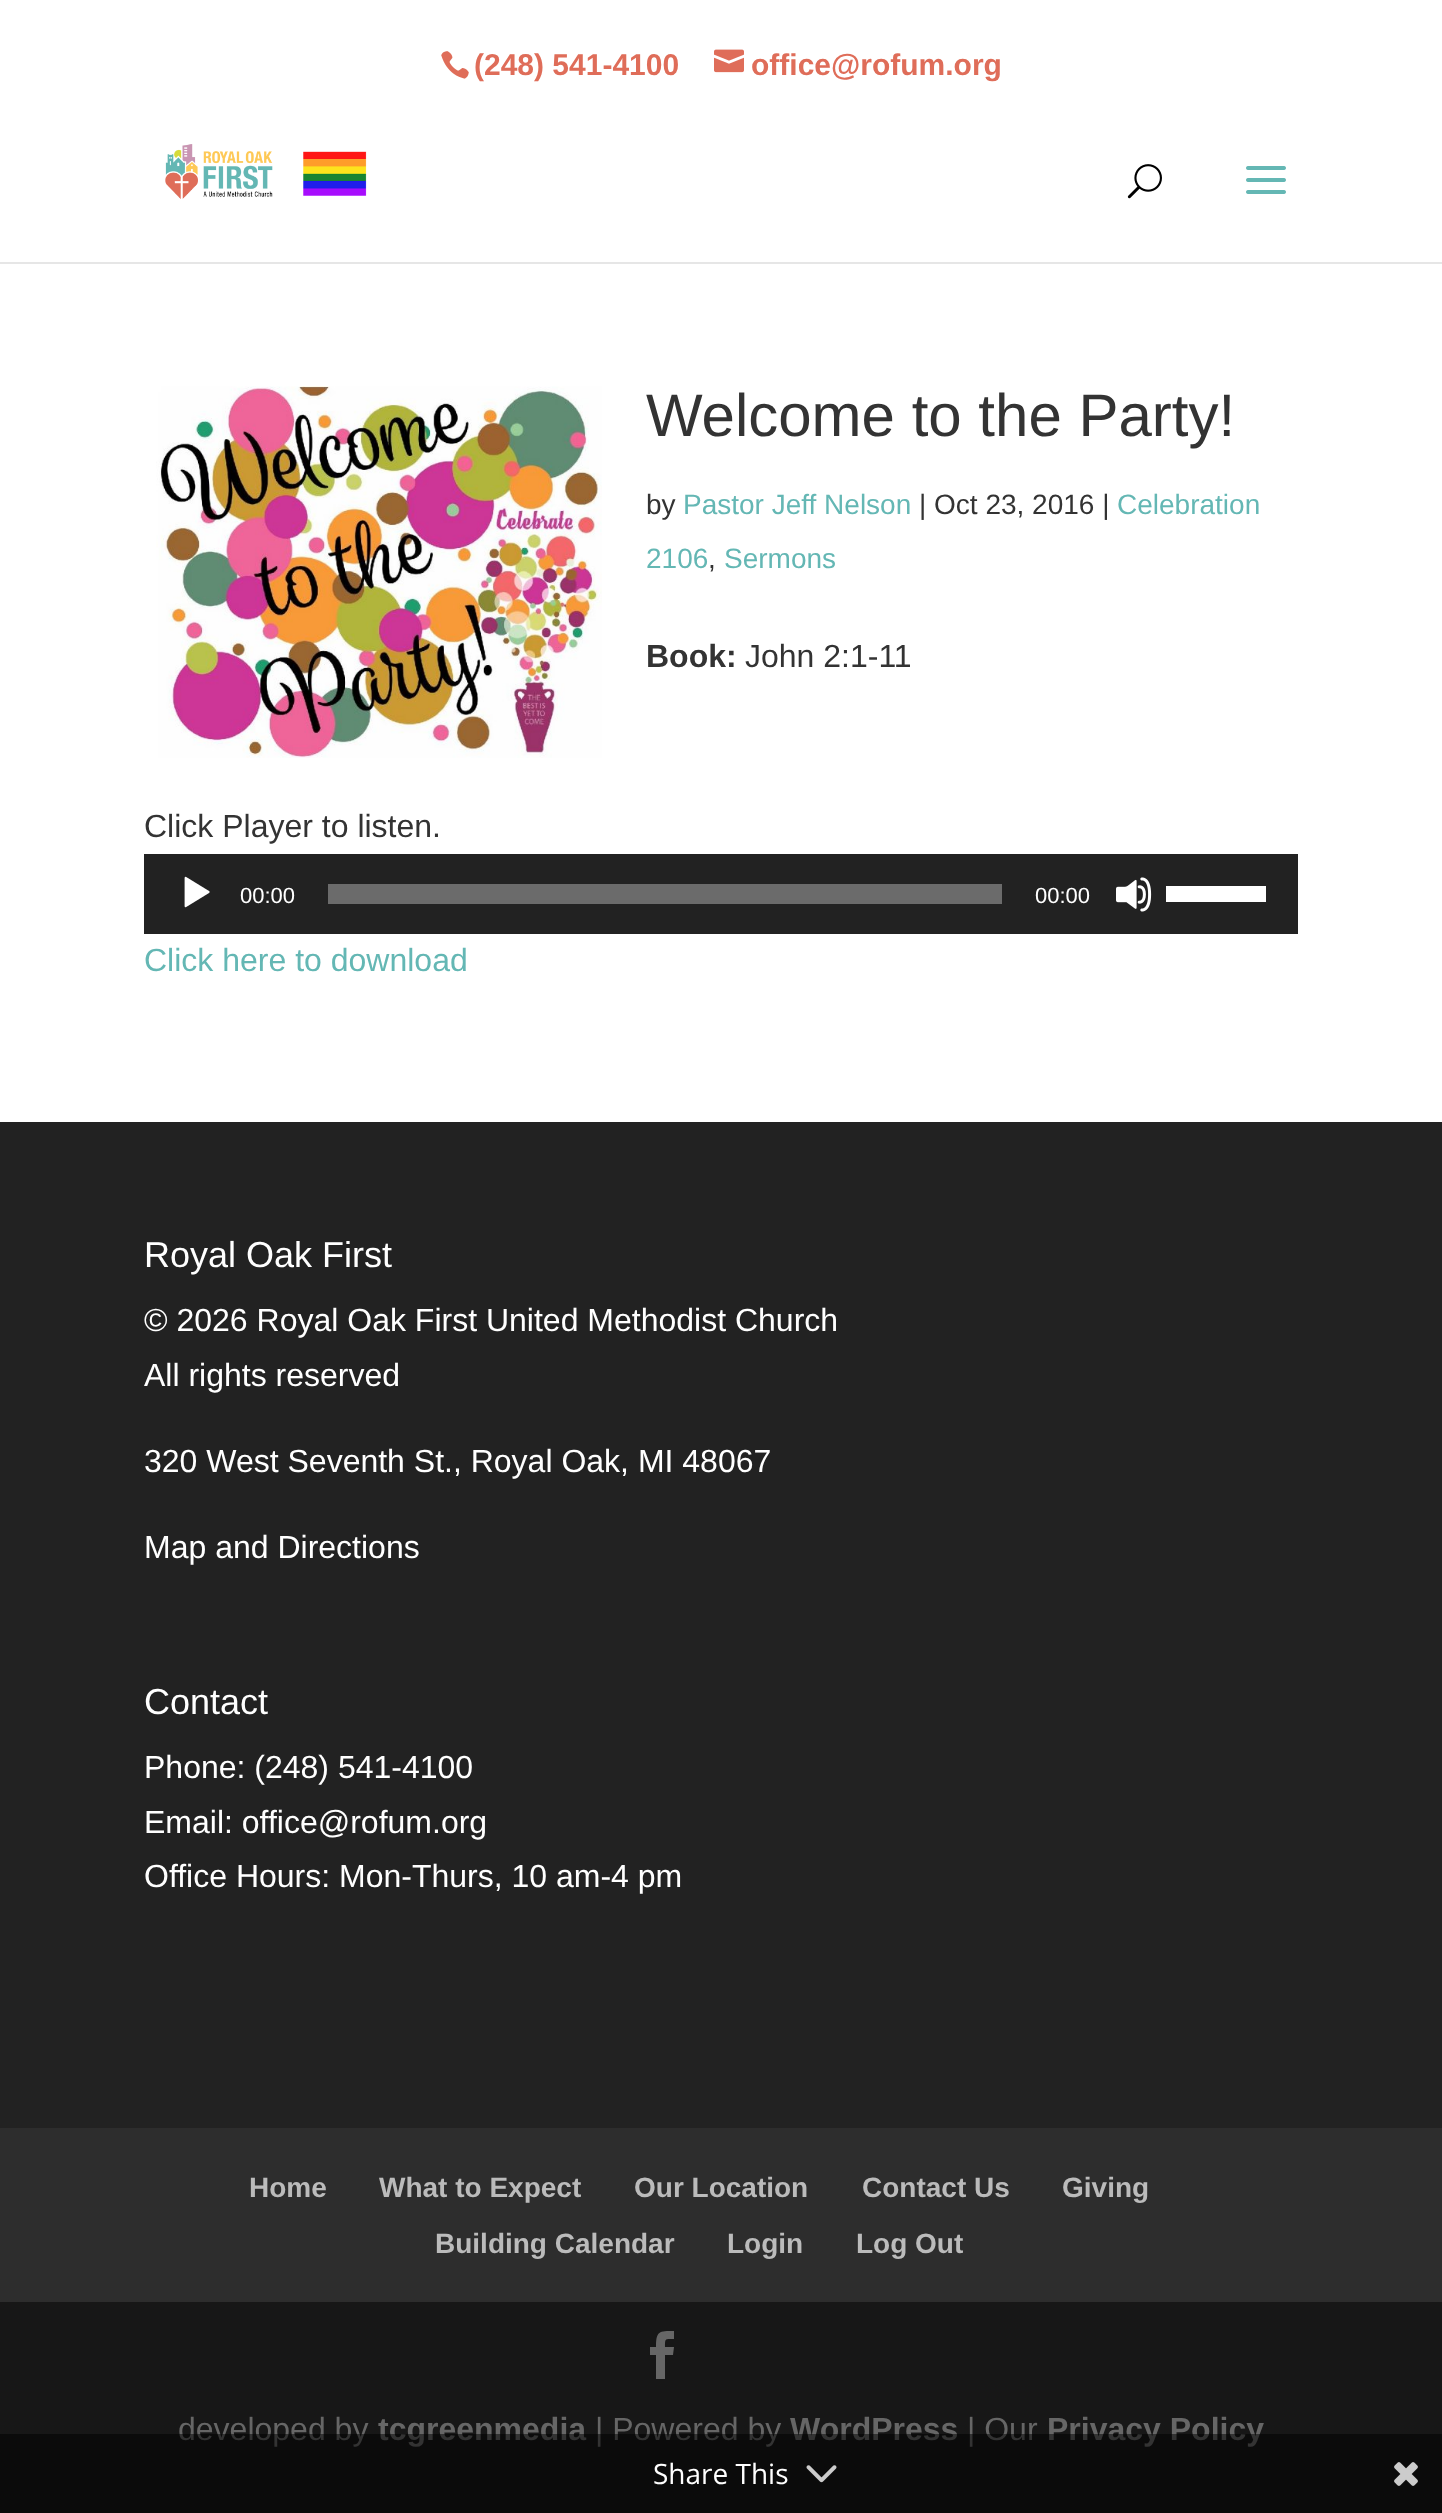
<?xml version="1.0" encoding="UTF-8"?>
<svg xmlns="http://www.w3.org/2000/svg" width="1442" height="2513">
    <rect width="100%" height="100%" fill="#FFFFFF"/>
    <image x="441" y="51" width="28" height="28" href="img_01.png"/>
    <text x="474" y="75" font-family="Liberation Sans" font-size="30" font-weight="700" fill="#DF6D59">(248) 541-4100</text>
    <image x="714" y="49" width="30" height="24" href="img_02.png"/>
    <text x="751" y="75" font-family="Liberation Sans" font-size="30" font-weight="700" fill="#DF6D59">office@rofum.org</text>
    <rect x="0" y="262" width="1442" height="2" fill="#E6E6E6"/>
    <image x="165" y="144" width="202" height="55" href="img_03.png"/>
    <image x="1127" y="164" width="35" height="35" href="img_04.png"/>
    <image x="1246" y="166" width="40" height="28" href="img_05.png"/>
    <image x="156" y="386" width="446" height="372" href="img_06.png"/>
    <text x="646" y="436" font-family="Liberation Sans" font-size="60" fill="#333333">Welcome to the Party!</text>
    <text x="646" y="514" font-family="Liberation Sans" font-size="28" fill="#333333">by</text>
    <text x="683" y="514" font-family="Liberation Sans" font-size="28" fill="#64B7B4">Pastor Jeff Nelson</text>
    <text x="919" y="514" font-family="Liberation Sans" font-size="28" fill="#333333">| Oct 23, 2016 |</text>
    <text x="1117" y="514" font-family="Liberation Sans" font-size="28" fill="#64B7B4">Celebration</text>
    <text x="646" y="568" font-family="Liberation Sans" font-size="28" fill="#64B7B4">2106</text>
    <text x="708" y="568" font-family="Liberation Sans" font-size="28" fill="#333333">,</text>
    <text x="724" y="568" font-family="Liberation Sans" font-size="28" fill="#64B7B4">Sermons</text>
    <text x="646" y="667" font-family="Liberation Sans" font-size="32" font-weight="700" fill="#333333">Book:</text>
    <text x="745" y="667" font-family="Liberation Sans" font-size="32" fill="#333333">John 2:1-11</text>
    <text x="144" y="837" font-family="Liberation Sans" font-size="32" fill="#333333">Click Player to listen.</text>
    <rect x="144" y="854" width="1154" height="80" fill="#222222"/>
    <image x="184" y="876" width="26" height="32" href="img_07.png"/>
    <text x="240" y="903" font-family="Liberation Sans" font-size="22" fill="#FFFFFF">00:00</text>
    <rect x="328" y="884" width="674" height="20" fill="#6B6B6B"/>
    <text x="1035" y="903" font-family="Liberation Sans" font-size="22" fill="#FFFFFF">00:00</text>
    <image x="1116" y="877" width="36" height="35" href="img_08.png"/>
    <rect x="1166" y="886" width="100" height="16" fill="#FFFFFF"/>
    <text x="144" y="971" font-family="Liberation Sans" font-size="32" fill="#64B7B4">Click here to download</text>
    <rect x="0" y="1122" width="1442" height="1006" fill="#222222"/>
    <text x="144" y="1267" font-family="Liberation Sans" font-size="36" fill="#FFFFFF">Royal Oak First</text>
    <text font-family="Liberation Sans" font-size="32" fill="#FFFFFF">
        <tspan x="144" y="1331">© 2026 Royal Oak First United Methodist Church</tspan>
        <tspan x="144" y="1386">All rights reserved</tspan>
    </text>
    <text x="144" y="1472" font-family="Liberation Sans" font-size="32" fill="#FFFFFF">320 West Seventh St., Royal Oak, MI 48067</text>
    <text x="144" y="1558" font-family="Liberation Sans" font-size="32" fill="#FFFFFF">Map and Directions</text>
    <text x="144" y="1714" font-family="Liberation Sans" font-size="36" fill="#FFFFFF">Contact</text>
    <text font-family="Liberation Sans" font-size="32" fill="#FFFFFF">
        <tspan x="144" y="1778">Phone: (248) 541-4100</tspan>
        <tspan x="144" y="1833">Email: office@rofum.org</tspan>
        <tspan x="144" y="1887">Office Hours: Mon-Thurs, 10 am-4 pm</tspan>
    </text>
    <rect x="0" y="2128" width="1442" height="174" fill="#2D2D2D"/>
    <text x="249" y="2197" font-family="Liberation Sans" font-size="28" font-weight="700" fill="#BBBBBB">Home</text>
    <text x="379" y="2197" font-family="Liberation Sans" font-size="28" font-weight="700" fill="#BBBBBB">What to Expect</text>
    <text x="634" y="2197" font-family="Liberation Sans" font-size="28" font-weight="700" fill="#BBBBBB">Our Location</text>
    <text x="862" y="2197" font-family="Liberation Sans" font-size="28" font-weight="700" fill="#BBBBBB">Contact Us</text>
    <text x="1062" y="2197" font-family="Liberation Sans" font-size="28" font-weight="700" fill="#BBBBBB">Giving</text>
    <text x="435" y="2253" font-family="Liberation Sans" font-size="28" font-weight="700" fill="#BBBBBB">Building Calendar</text>
    <text x="727" y="2253" font-family="Liberation Sans" font-size="28" font-weight="700" fill="#BBBBBB">Login</text>
    <text x="856" y="2253" font-family="Liberation Sans" font-size="28" font-weight="700" fill="#BBBBBB">Log Out</text>
    <rect x="0" y="2302" width="1442" height="211" fill="#171717"/>
    <path d="M 656 2379 H 665 V 2355 H 673 L 674 2347 H 665 C 665 2338 665 2339 674 2339 V 2331 C 659 2331 656 2331 656 2347 H 650 V 2355 H 656 Z" fill="#666666"/>
    <text x="178" y="2440" font-family="Liberation Sans" font-size="32" fill="#666666">developed by</text>
    <text x="378" y="2440" font-family="Liberation Sans" font-size="32" font-weight="700" fill="#666666">tcgreenmedia</text>
    <text x="595" y="2440" font-family="Liberation Sans" font-size="32" fill="#666666">| Powered by</text>
    <text x="790" y="2440" font-family="Liberation Sans" font-size="32" font-weight="700" fill="#666666">WordPress</text>
    <text x="967" y="2440" font-family="Liberation Sans" font-size="32" fill="#666666">| Our</text>
    <text x="1047" y="2440" font-family="Liberation Sans" font-size="32" font-weight="700" fill="#666666">Privacy Policy</text>
    <rect x="0" y="2434" width="1442" height="79" fill="#000000" fill-opacity="0.5"/>
    <text x="653" y="2484" font-family="Open Sans" font-size="28" fill="#FFFFFF">Share This</text>
    <image x="806" y="2465" width="31" height="18" href="img_09.png"/>
    <image x="1394" y="2462" width="24" height="24" href="img_10.png"/>
</svg>
